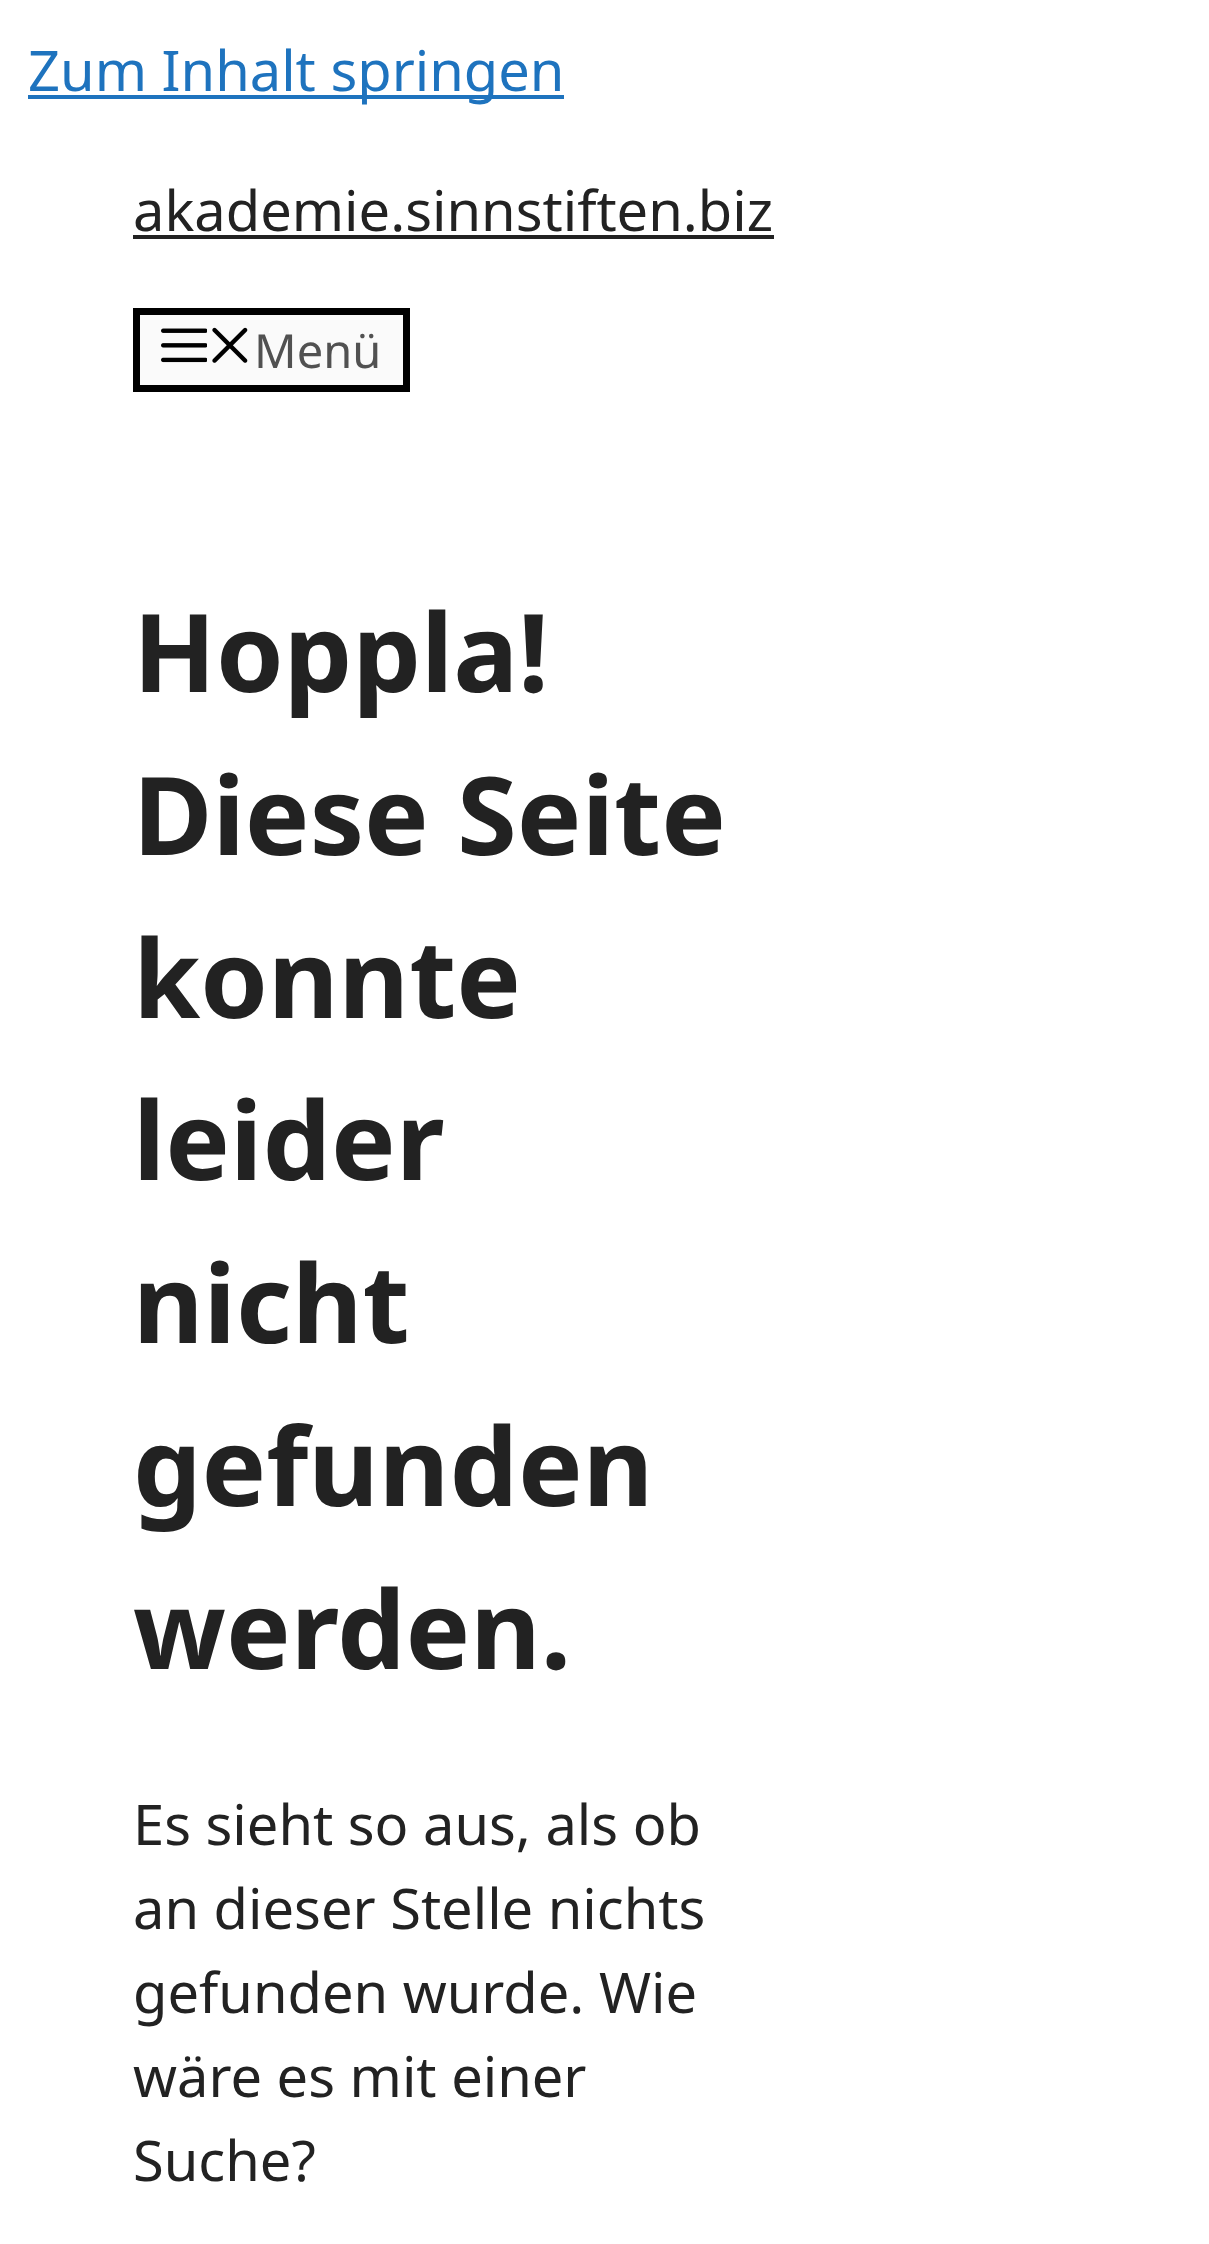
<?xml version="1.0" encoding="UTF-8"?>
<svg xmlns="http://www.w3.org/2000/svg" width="1209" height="2244">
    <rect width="100%" height="100%" fill="#FFFFFF"/>
    <rect x="28" y="95" width="536" height="4" fill="#1E73BE"/>
    <text x="28" y="91" font-family="Noto Sans" font-size="56" fill="#1E73BE">Zum Inhalt springen</text>
    <text x="133" y="231" font-family="Noto Sans" font-size="56" fill="#222222">akademie.sinnstiften.biz</text>
    <rect x="133" y="235" width="641" height="4" fill="#222222"/>
    <rect x="136.5" y="311.5" width="270" height="77" fill="#FAFAFA" stroke="#000000" stroke-width="7"/>
    <image x="161" y="328" width="46" height="35" href="img_01.png"/>
    <image x="212" y="327" width="36" height="36" href="img_02.png"/>
    <text x="254" y="368" font-family="Noto Sans" font-size="47" fill="#515151">Menü</text>
    <text font-family="Noto Sans" font-size="108.5" font-weight="700" fill="#222222">
        <tspan x="133" y="692">Hoppla!</tspan>
        <tspan x="133" y="855">Diese Seite</tspan>
        <tspan x="133" y="1018">konnte</tspan>
        <tspan x="133" y="1180">leider</tspan>
        <tspan x="133" y="1343">nicht</tspan>
        <tspan x="133" y="1506">gefunden</tspan>
        <tspan x="133" y="1669">werden.</tspan>
    </text>
    <text font-family="Noto Sans" font-size="56" fill="#222222">
        <tspan x="133" y="1845">Es sieht so aus, als ob</tspan>
        <tspan x="133" y="1929">an dieser Stelle nichts</tspan>
        <tspan x="133" y="2013">gefunden wurde. Wie</tspan>
        <tspan x="133" y="2097">wäre es mit einer</tspan>
        <tspan x="133" y="2181">Suche?</tspan>
    </text>
</svg>
